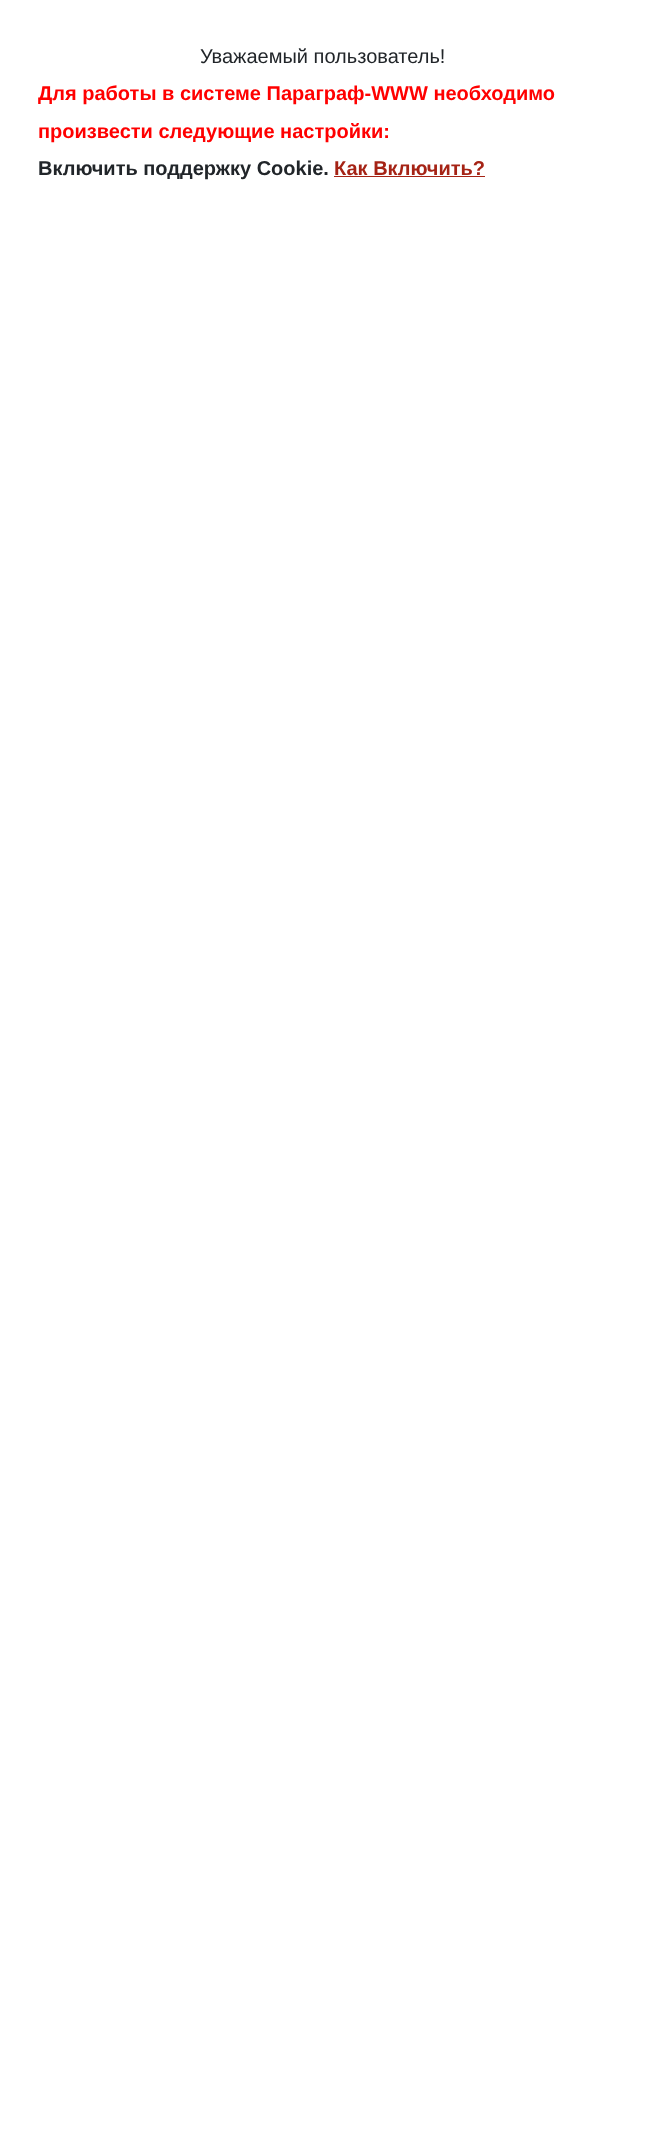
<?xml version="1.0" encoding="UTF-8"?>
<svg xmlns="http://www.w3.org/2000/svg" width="646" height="2154">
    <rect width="100%" height="100%" fill="#FFFFFF"/>
    <text x="200" y="63" font-family="Liberation Sans" font-size="20" fill="#212529">Уважаемый пользователь!</text>
    <text font-family="Liberation Sans" font-size="20" font-weight="700" fill="#FF0000">
        <tspan x="38" y="100">Для работы в системе Параграф-WWW необходимо</tspan>
        <tspan x="38" y="138">произвести следующие настройки:</tspan>
    </text>
    <text x="38" y="175" font-family="Liberation Sans" font-size="20" font-weight="700" fill="#212529">Включить поддержку Cookie.</text>
    <text x="334" y="175" font-family="Liberation Sans" font-size="20" font-weight="700" fill="#A52315">Как Включить?</text>
    <rect x="334" y="176" width="151" height="1" fill="#A52315"/>
</svg>
